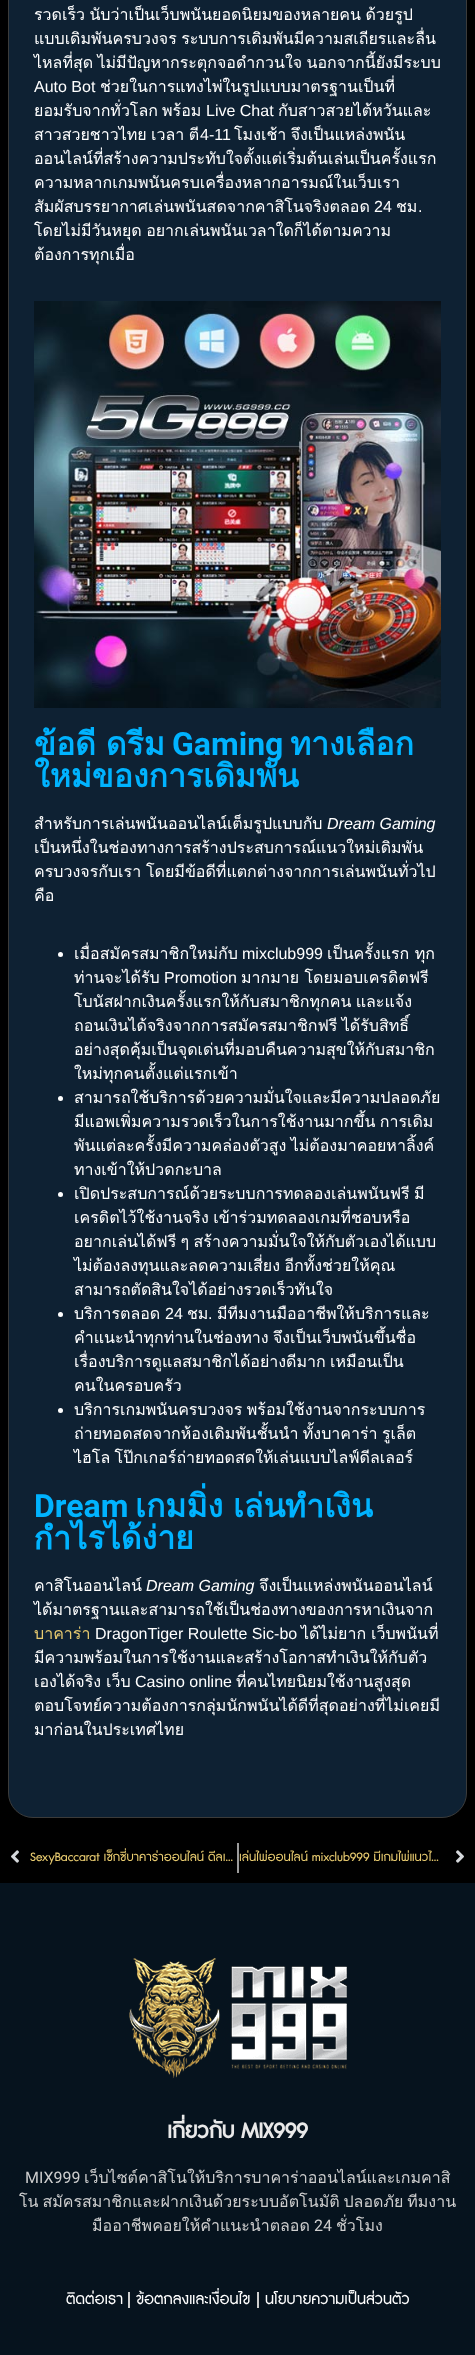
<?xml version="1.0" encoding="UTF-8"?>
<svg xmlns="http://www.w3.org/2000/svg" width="475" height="2355">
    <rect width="100%" height="100%" fill="#000000"/>
    <rect x="8.5" y="-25.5" width="458" height="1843" rx="24.5" fill="#0E2133" stroke="#3B3B3A"/>
    <text font-family="Loma" font-size="16" fill="#FFFFFF">
        <tspan x="34" y="20" word-spacing="-1">รวดเร็ว นับว่าเป็นเว็บพนันยอดนิยมของหลายคน ด้วยรูป</tspan>
        <tspan x="34" y="44" word-spacing="-1">แบบเดิมพันครบวงจร ระบบการเดิมพันมีความสเถียรและลื่น</tspan>
        <tspan x="34" y="68" word-spacing="-1">ไหลที่สุด ไม่มีปัญหากระตุกจอดำกวนใจ นอกจากนี้ยังมีระบบ</tspan>
    </text>
    <text x="34" y="92" font-family="Liberation Sans" font-size="16" fill="#FFFFFF">Auto Bot</text>
    <text x="100" y="92" font-family="Loma" font-size="16" fill="#FFFFFF">ช่วยในการแทงไพ่ในรูปแบบมาตรฐานเป็นที่</text>
    <text x="34" y="116" font-family="Loma" font-size="16" fill="#FFFFFF">ยอมรับจากทั่วโลก</text>
    <text x="162" y="116" font-family="Loma" font-size="16" fill="#FFFFFF">พร้อม</text>
    <text x="206" y="116" font-family="Liberation Sans" font-size="16" fill="#FFFFFF">Live Chat</text>
    <text x="278" y="116" font-family="Loma" font-size="16" fill="#FFFFFF">กับสาวสวยไต้หวันและ</text>
    <text x="34" y="140" word-spacing="-1" font-family="Loma" font-size="16" fill="#FFFFFF">สาวสวยชาวไทย เวลา ตี</text>
    <text x="200" y="140" font-family="Liberation Sans" font-size="16" fill="#FFFFFF">4-11</text>
    <text x="234" y="140" word-spacing="-1" font-family="Loma" font-size="16" fill="#FFFFFF">โมงเช้า จึงเป็นแหล่งพนัน</text>
    <text font-family="Loma" font-size="16" fill="#FFFFFF">
        <tspan x="34" y="164">ออนไลน์ที่สร้างความประทับใจตั้งแต่เริ่มต้นเล่นเป็นครั้งแรก</tspan>
        <tspan x="34" y="188">ความหลากเกมพนันครบเครื่องหลากอารมณ์ในเว็บเรา</tspan>
        <tspan x="34" y="212">สัมผัสบรรยากาศเล่นพนันสดจากคาสิโนจริงตลอด</tspan>
    </text>
    <text x="374" y="212" font-family="Liberation Sans" font-size="16" fill="#FFFFFF">24</text>
    <text x="396" y="212" font-family="Loma" font-size="16" fill="#FFFFFF">ชม</text>
    <text x="418" y="212" font-family="Liberation Sans" font-size="16" fill="#FFFFFF">.</text>
    <text font-family="Loma" font-size="16" fill="#FFFFFF">
        <tspan x="34" y="236" word-spacing="-1">โดยไม่มีวันหยุด อยากเล่นพนันเวลาใดก็ได้ตามความ</tspan>
        <tspan x="34" y="260">ต้องการทุกเมื่อ</tspan>
    </text>
    <image x="34" y="301" width="407" height="407" href="img_01.png"/>
    <text x="34" y="755" word-spacing="-1" font-family="Loma" font-size="32" font-weight="700" fill="#00B3FF">ข้อดี ดรีม</text>
    <text x="172" y="755" font-family="Roboto" font-size="32" font-weight="700" fill="#00B3FF">Gaming</text>
    <text x="290" y="755" font-family="Loma" font-size="32" font-weight="700" fill="#00B3FF">ทางเลือก</text>
    <text x="34" y="787" font-family="Loma" font-size="32" font-weight="700" fill="#00B3FF">ใหม่ของการเดิมพัน</text>
    <text x="34" y="829" font-family="Loma" font-size="16" fill="#FFFFFF">สำหรับการเล่นพนันออนไลน์เต็มรูปแบบกับ</text>
    <text x="327" y="829" font-family="Liberation Sans" font-size="16" font-style="italic" fill="#FFFFFF">Dream Gaming</text>
    <text font-family="Loma" font-size="16" fill="#FFFFFF">
        <tspan x="34" y="853">เป็นหนึ่งในช่องทางการสร้างประสบการณ์แนวใหม่เดิมพัน</tspan>
        <tspan x="34" y="877">ครบวงจรกับเรา</tspan>
    </text>
    <text x="146" y="877" font-family="Loma" font-size="16" fill="#FFFFFF">โดยมีข้อดีที่แตกต่างจากการเล่นพนันทั่วไป</text>
    <text x="34" y="901" font-family="Loma" font-size="16" fill="#FFFFFF">คือ</text>
    <circle cx="60.5" cy="954.5" r="2.5" fill="#FFFFFF"/>
    <text x="74" y="959" font-family="Loma" font-size="16" fill="#FFFFFF">เมื่อสมัครสมาชิกใหม่กับ</text>
    <text x="242" y="959" font-family="Liberation Sans" font-size="16" fill="#FFFFFF">mixclub999</text>
    <text x="327" y="959" font-family="Loma" font-size="16" fill="#FFFFFF">เป็นครั้งแรก ทุก</text>
    <text x="74" y="983" font-family="Loma" font-size="16" fill="#FFFFFF">ท่านจะได้รับ</text>
    <text x="164" y="983" font-family="Liberation Sans" font-size="16" fill="#FFFFFF">Promotion</text>
    <text x="241" y="983" font-family="Loma" font-size="16" fill="#FFFFFF">มากมาย โดยมอบเครดิตฟรี</text>
    <text font-family="Loma" font-size="16" fill="#FFFFFF">
        <tspan x="74" y="1007" word-spacing="-1">โบนัสฝากเงินครั้งแรกให้กับสมาชิกทุกคน และแจ้ง</tspan>
        <tspan x="74" y="1031" word-spacing="-1">ถอนเงินได้จริงจากการสมัครสมาชิกฟรี ได้รับสิทธิ์</tspan>
        <tspan x="74" y="1055">อย่างสุดคุ้มเป็นจุดเด่นที่มอบคืนความสุขให้กับสมาชิก</tspan>
        <tspan x="74" y="1079">ใหม่ทุกคนตั้งแต่แรกเข้า</tspan>
    </text>
    <circle cx="60.5" cy="1098.5" r="2.5" fill="#FFFFFF"/>
    <text font-family="Loma" font-size="16" fill="#FFFFFF">
        <tspan x="74" y="1103">สามารถใช้บริการด้วยความมั่นใจและมีความปลอดภัย</tspan>
        <tspan x="74" y="1127" word-spacing="-1">มีแอพเพิ่มความรวดเร็วในการใช้งานมากขึ้น การเดิม</tspan>
        <tspan x="74" y="1151" word-spacing="-1">พันแต่ละครั้งมีความคล่องตัวสูง ไม่ต้องมาคอยหาลิ้งค์</tspan>
        <tspan x="74" y="1175">ทางเข้าให้ปวดกะบาล</tspan>
    </text>
    <circle cx="60.5" cy="1194.5" r="2.5" fill="#FFFFFF"/>
    <text font-family="Loma" font-size="16" fill="#FFFFFF">
        <tspan x="74" y="1199" word-spacing="-1">เปิดประสบการณ์ด้วยระบบการทดลองเล่นพนันฟรี มี</tspan>
        <tspan x="74" y="1223" word-spacing="-1">เครดิตไว้ใช้งานจริง เข้าร่วมทดลองเกมที่ชอบหรือ</tspan>
        <tspan x="74" y="1247" word-spacing="-1">อยากเล่นได้ฟรี ๆ สร้างความมั่นใจให้กับตัวเองได้แบบ</tspan>
        <tspan x="74" y="1271" word-spacing="-1">ไม่ต้องลงทุนและลดความเสี่ยง อีกทั้งช่วยให้คุณ</tspan>
        <tspan x="74" y="1295">สามารถตัดสินใจได้อย่างรวดเร็วทันใจ</tspan>
    </text>
    <circle cx="60.5" cy="1314.5" r="2.5" fill="#FFFFFF"/>
    <text x="74" y="1319" font-family="Loma" font-size="16" fill="#FFFFFF">บริการตลอด</text>
    <text x="165" y="1319" font-family="Liberation Sans" font-size="16" fill="#FFFFFF">24</text>
    <text x="187" y="1319" font-family="Loma" font-size="16" fill="#FFFFFF">ชม</text>
    <text x="208" y="1319" font-family="Liberation Sans" font-size="16" fill="#FFFFFF">.</text>
    <text x="217" y="1319" font-family="Loma" font-size="16" fill="#FFFFFF">มีทีมงานมืออาชีพให้บริการและ</text>
    <text font-family="Loma" font-size="16" fill="#FFFFFF">
        <tspan x="74" y="1343" word-spacing="-1">คำแนะนำทุกท่านในช่องทาง จึงเป็นเว็บพนันขึ้นชื่อ</tspan>
        <tspan x="74" y="1367" word-spacing="-1">เรื่องบริการดูแลสมาชิกได้อย่างดีมาก เหมือนเป็น</tspan>
        <tspan x="74" y="1391">คนในครอบครัว</tspan>
    </text>
    <circle cx="60.5" cy="1410.5" r="2.5" fill="#FFFFFF"/>
    <text font-family="Loma" font-size="16" fill="#FFFFFF">
        <tspan x="74" y="1415" word-spacing="-1">บริการเกมพนันครบวงจร พร้อมใช้งานจากระบบการ</tspan>
        <tspan x="74" y="1439" word-spacing="-1">ถ่ายทอดสดจากห้องเดิมพันชั้นนำ ทั้งบาคาร่า รูเล็ต</tspan>
        <tspan x="74" y="1463" word-spacing="-1">ไฮโล โป๊กเกอร์ถ่ายทอดสดให้เล่นแบบไลฟ์ดีลเลอร์</tspan>
    </text>
    <text x="34" y="1517" font-family="Roboto" font-size="32" font-weight="700" fill="#00B3FF">Dream</text>
    <text x="135" y="1517" word-spacing="-1" font-family="Loma" font-size="32" font-weight="700" fill="#00B3FF">เกมมิ่ง เล่นทำเงิน</text>
    <text x="34" y="1549" font-family="Loma" font-size="32" font-weight="700" fill="#00B3FF">กำไรได้ง่าย</text>
    <text x="34" y="1591" font-family="Loma" font-size="16" fill="#FFFFFF">คาสิโนออนไลน์</text>
    <text x="146" y="1591" font-family="Liberation Sans" font-size="16" font-style="italic" fill="#FFFFFF">Dream Gaming</text>
    <text x="259" y="1591" font-family="Loma" font-size="16" fill="#FFFFFF">จึงเป็นแหล่งพนันออนไลน์</text>
    <text x="34" y="1615" font-family="Loma" font-size="16" fill="#FFFFFF">ได้มาตรฐานและสามารถใช้เป็นช่องทางของการหาเงินจาก</text>
    <text x="34" y="1639" font-family="Loma" font-size="16" fill="#E7CA6F">บาคาร่า</text>
    <text x="95" y="1639" font-family="Liberation Sans" font-size="16" fill="#FFFFFF">DragonTiger Roulette Sic-bo</text>
    <text x="301" y="1639" font-family="Loma" font-size="16" fill="#FFFFFF">ได้ไม่ยาก</text>
    <text x="371" y="1639" font-family="Loma" font-size="16" fill="#FFFFFF">เว็บพนันที่</text>
    <text font-family="Loma" font-size="16" fill="#FFFFFF">
        <tspan x="34" y="1663">มีความพร้อมในการใช้งานและสร้างโอกาสทำเงินให้กับตัว</tspan>
        <tspan x="34" y="1687">เองได้จริง</tspan>
    </text>
    <text x="106" y="1687" font-family="Loma" font-size="16" fill="#FFFFFF">เว็บ</text>
    <text x="135" y="1687" font-family="Liberation Sans" font-size="16" fill="#FFFFFF">Casino online</text>
    <text x="236" y="1687" font-family="Loma" font-size="16" fill="#FFFFFF">ที่คนไทยนิยมใช้งานสูงสุด</text>
    <text font-family="Loma" font-size="16" fill="#FFFFFF">
        <tspan x="34" y="1711">ตอบโจทย์ความต้องการกลุ่มนักพนันได้ดีที่สุดอย่างที่ไม่เคยมี</tspan>
        <tspan x="34" y="1735">มาก่อนในประเทศไทย</tspan>
    </text>
    <image x="11" y="1850" width="8" height="13" href="img_02.png"/>
    <text x="30" y="1861" font-family="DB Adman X" font-size="16" fill="#E7CA6F">SexyBaccarat เซ็กซี่บาคาร่าออนไลน์ ดีลเ…</text>
    <rect x="237" y="1843" width="2" height="30" fill="#9C9C9C"/>
    <text x="239" y="1861" font-family="DB Adman X" font-size="16" fill="#E7CA6F">เล่นไพ่ออนไลน์ mixclub999 มีเกมไพ่แนวไ…</text>
    <image x="456" y="1850" width="8" height="13" href="img_03.png"/>
    <rect x="0" y="1883" width="475" height="472" fill="#06131E"/>
    <image x="129" y="1958" width="218" height="121" href="img_04.png"/>
    <text x="167" y="2138" font-family="DB Adman X" font-size="28" font-weight="700" fill="#E9E9E9">เกี่ยวกับ MIX999</text>
    <text x="25" y="2183" font-family="Roboto" font-size="16" fill="#CECECE">MIX999</text>
    <text x="84" y="2183" font-family="Loma" font-size="16" fill="#CECECE">เว็บไซต์คาสิโนให้บริการบาคาร่าออนไลน์และเกมคาสิ</text>
    <text x="19" y="2207" word-spacing="-1.5" font-family="Loma" font-size="16" fill="#CECECE">โน สมัครสมาชิกและฝากเงินด้วยระบบอัตโนมัติ ปลอดภัย ทีมงาน</text>
    <text x="92" y="2231" font-family="Loma" font-size="16" fill="#CECECE">มืออาชีพคอยให้คำแนะนำตลอด</text>
    <text x="314" y="2231" font-family="Roboto" font-size="16" fill="#CECECE">24</text>
    <text x="336" y="2231" font-family="Loma" font-size="16" fill="#CECECE">ชั่วโมง</text>
    <text x="66" y="2304" font-family="DB Adman X" font-size="20" fill="#FFFFFF">ติดต่อเรา</text>
    <rect x="128" y="2292" width="2" height="16" fill="#CECECE"/>
    <text x="136" y="2304" font-family="DB Adman X" font-size="20" fill="#FFFFFF">ข้อตกลงและเงื่อนไข</text>
    <rect x="257" y="2292" width="2" height="16" fill="#CECECE"/>
    <text x="265" y="2304" font-family="DB Adman X" font-size="20" fill="#FFFFFF">นโยบายความเป็นส่วนตัว</text>
</svg>
